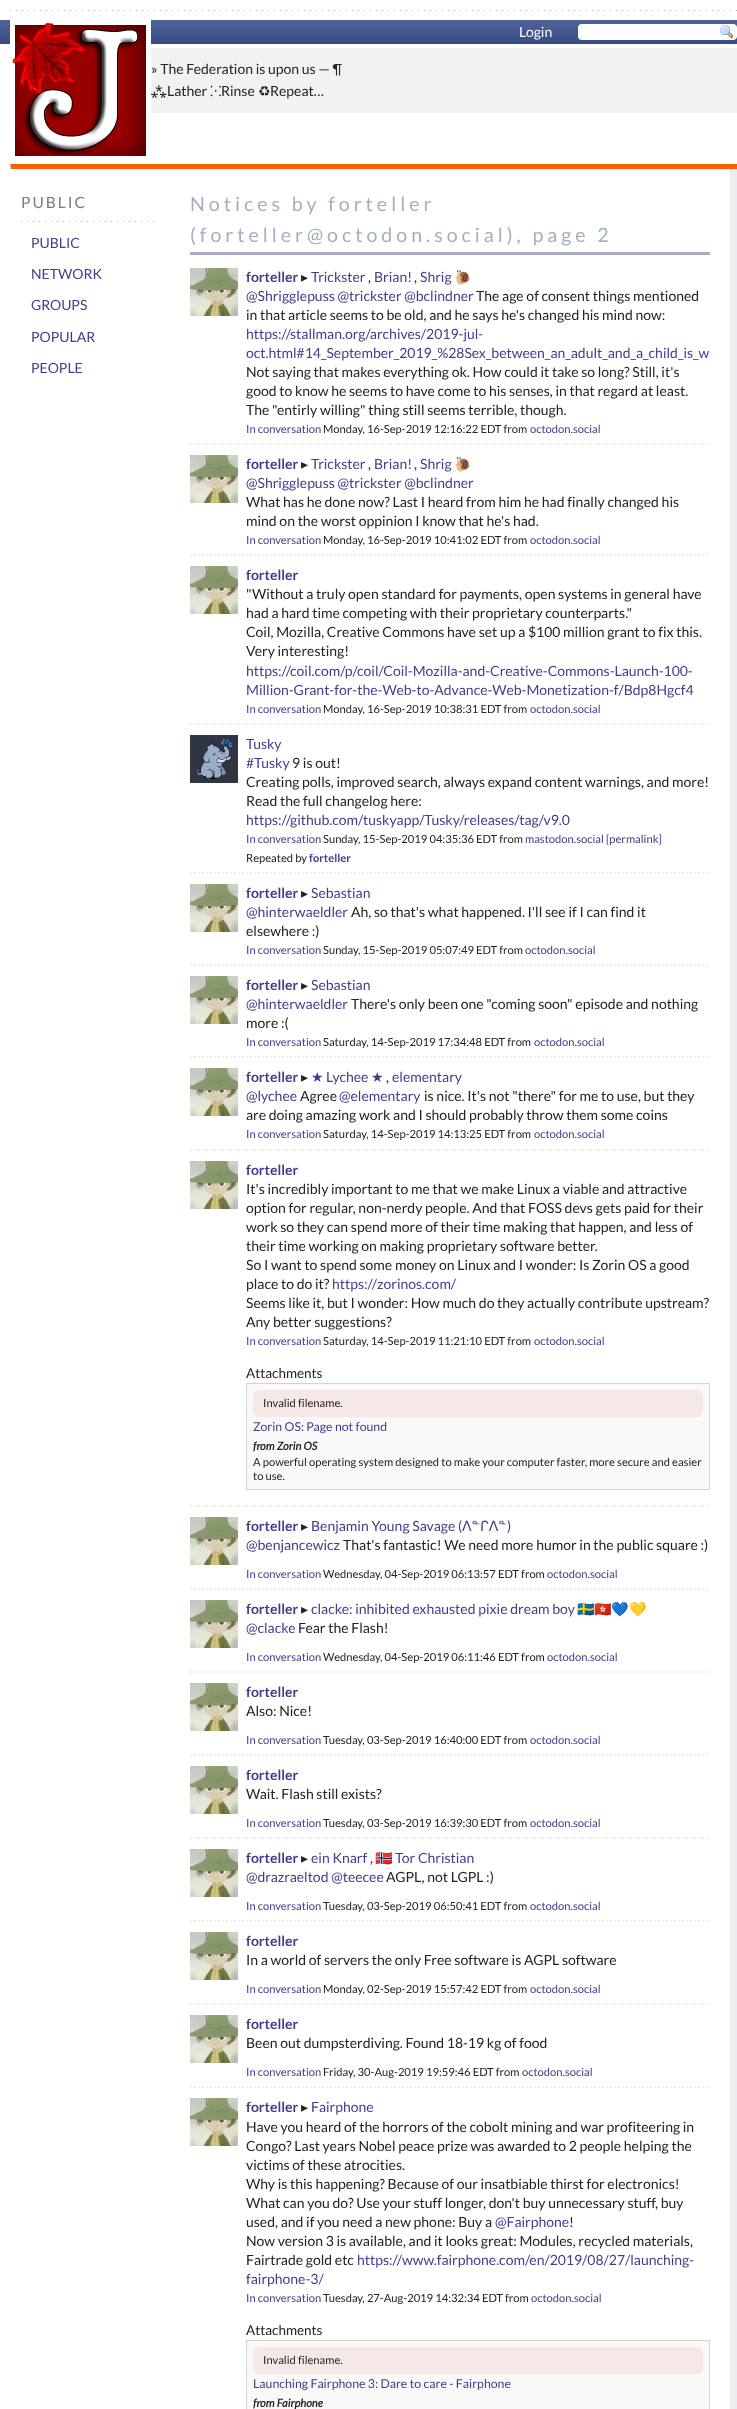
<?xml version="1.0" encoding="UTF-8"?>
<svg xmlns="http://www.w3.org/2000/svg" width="737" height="2409">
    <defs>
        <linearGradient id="g1" gradientUnits="userSpaceOnUse" x1="347" y1="20" x2="347" y2="44"><stop offset="0" stop-color="#516499"/><stop offset="1" stop-color="#364A84"/></linearGradient>
    </defs>
    <rect width="100%" height="100%" fill="#FFFFFF"/>
    <image x="10" y="10" width="727" height="1" href="img_01.png"/>
    <rect x="0" y="20" width="737" height="24" fill="url(#g1)"/>
    <image x="10" y="20" width="141" height="136" href="img_02.png"/>
    <text x="519" y="37" font-family="Lato" font-size="14" fill="#FFFFFF">Login</text>
    <rect x="578" y="24" width="159" height="16" rx="4" fill="#FFFFFF"/>
    <image x="720" y="25" width="13" height="14" href="img_03.png"/>
    <rect x="151" y="48" width="586" height="65" fill="#F2F2F2"/>
    <text x="151" y="74" font-family="Lato" font-size="14" fill="#222222">» The Federation is upon us — ¶</text>
    <text x="151" y="96" font-family="Noto Sans" font-size="14" fill="#222222">⁂</text>
    <text x="167" y="96" font-family="Lato" font-size="14" fill="#222222">Lather</text>
    <text x="210" y="96" font-family="Noto Sans" font-size="14" fill="#222222">⁙</text>
    <text x="221" y="96" font-family="Lato" font-size="14" fill="#222222">Rinse</text>
    <text x="258" y="96" font-family="DejaVu Sans" font-size="14" fill="#222222">♻</text>
    <text x="270" y="96" font-family="Lato" font-size="14" fill="#222222">Repeat…</text>
    <path d="M 10 164 H 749 L 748 169 H 11 Z" fill="#FB6104"/>
    <path d="M 10 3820 V 164 L 11 169 V 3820 Z" fill="#D8DAE6"/>
    <rect x="730" y="169" width="7" height="2240" fill="#ECECF2"/>
    <rect x="10" y="169" width="1" height="2240" fill="#FFFFFF"/>
    <image x="21" y="221" width="133" height="1" href="img_04.png"/>
    <text x="21" y="208" font-family="Lato" font-size="15.5" letter-spacing="2" fill="#7A7C87">PUBLIC</text>
    <text x="31" y="248" font-family="Lato" font-size="14" fill="#3E3E8C">PUBLIC</text>
    <text x="31" y="279" font-family="Lato" font-size="14" fill="#3E3E8C">NETWORK</text>
    <text x="31" y="310" font-family="Lato" font-size="14" fill="#3E3E8C">GROUPS</text>
    <text x="31" y="342" font-family="Lato" font-size="14" fill="#3E3E8C">POPULAR</text>
    <text x="31" y="373" font-family="Lato" font-size="14" fill="#3E3E8C">PEOPLE</text>
    <rect x="190" y="252" width="520" height="3" fill="#A6ADBF"/>
    <text font-family="Lato" font-size="19.6" letter-spacing="4" fill="#A6ADBF">
        <tspan x="190" y="211">Notices by forteller</tspan>
        <tspan x="190" y="242">(forteller@octodon.social), page 2</tspan>
    </text>
    <path d="M 190 444 H 710" fill="none" stroke="#EEEEEE" stroke-width="2" stroke-dasharray="2 2"/>
    <image x="190" y="268" width="48" height="48" href="img_05.png"/>
    <text x="246" y="282" font-family="Lato" font-size="14" font-weight="700" fill="#3E3E8C">forteller</text>
    <text x="301" y="282" font-family="DejaVu Sans" font-size="14" fill="#222222">▸</text>
    <text x="311" y="282" font-family="Lato" font-size="14" fill="#3E3E8C">Trickster</text>
    <text x="368" y="282" font-family="Lato" font-size="14" fill="#222222">,</text>
    <text x="374" y="282" font-family="Lato" font-size="14" fill="#3E3E8C">Brian!</text>
    <text x="414" y="282" font-family="Lato" font-size="14" fill="#222222">,</text>
    <text x="420" y="282" font-family="Lato" font-size="14" fill="#3E3E8C">Shrig</text>
    <text x="454" y="282" font-family="Noto Color Emoji" font-size="14" fill="#3E3E8C">🐌</text>
    <text x="246" y="301" font-family="Lato" font-size="14" fill="#3E3E8C">@Shrigglepuss @trickster @bclindner</text>
    <text x="476" y="301" font-family="Lato" font-size="14" fill="#222222">The age of consent things mentioned</text>
    <text x="246" y="320" font-family="Lato" font-size="14" fill="#222222">in that article seems to be old, and he says he's changed his mind now:</text>
    <text x="246" y="339" font-family="Lato" font-size="14" fill="#3E3E8C">https://</text>
    <text x="290" y="339" font-family="Lato" font-size="14" fill="#3E3E8C">stallman.org/archives/2019-jul-</text>
    <text x="246" y="358" font-family="Lato" font-size="14" fill="#3E3E8C">oct.html#14_September_2019_%28Sex_between_an_adult_and_a_child_is_w</text>
    <text font-family="Lato" font-size="14" fill="#222222">
        <tspan x="246" y="377">Not saying that makes everything ok. How could it take so long? Still, it's</tspan>
        <tspan x="246" y="396">good to know he seems to have come to his senses, in that regard at least.</tspan>
        <tspan x="246" y="415">The "entirly willing" thing still seems terrible, though.</tspan>
    </text>
    <text x="246" y="433" font-family="Lato" font-size="11.2" fill="#3E3E8C">In conversation</text>
    <text x="323" y="433" font-family="Lato" font-size="11.2" fill="#222222">Monday, 16-Sep-2019 12:16:22 EDT from</text>
    <text x="530" y="433" font-family="Lato" font-size="11.2" fill="#3E3E8C">octodon.social</text>
    <path d="M 190 555 H 710" fill="none" stroke="#EEEEEE" stroke-width="2" stroke-dasharray="2 2"/>
    <image x="190" y="455" width="48" height="48" href="img_05.png"/>
    <text x="246" y="469" font-family="Lato" font-size="14" font-weight="700" fill="#3E3E8C">forteller</text>
    <text x="301" y="469" font-family="DejaVu Sans" font-size="14" fill="#222222">▸</text>
    <text x="311" y="469" font-family="Lato" font-size="14" fill="#3E3E8C">Trickster</text>
    <text x="368" y="469" font-family="Lato" font-size="14" fill="#222222">,</text>
    <text x="374" y="469" font-family="Lato" font-size="14" fill="#3E3E8C">Brian!</text>
    <text x="414" y="469" font-family="Lato" font-size="14" fill="#222222">,</text>
    <text x="420" y="469" font-family="Lato" font-size="14" fill="#3E3E8C">Shrig</text>
    <text x="454" y="469" font-family="Noto Color Emoji" font-size="14" fill="#3E3E8C">🐌</text>
    <text x="246" y="488" font-family="Lato" font-size="14" fill="#3E3E8C">@Shrigglepuss @trickster @bclindner</text>
    <text font-family="Lato" font-size="14" fill="#222222">
        <tspan x="246" y="507">What has he done now? Last I heard from him he had finally changed his</tspan>
        <tspan x="246" y="526">mind on the worst oppinion I know that he's had.</tspan>
    </text>
    <text x="246" y="544" font-family="Lato" font-size="11.2" fill="#3E3E8C">In conversation</text>
    <text x="323" y="544" font-family="Lato" font-size="11.2" fill="#222222">Monday, 16-Sep-2019 10:41:02 EDT from</text>
    <text x="530" y="544" font-family="Lato" font-size="11.2" fill="#3E3E8C">octodon.social</text>
    <path d="M 190 724 H 710" fill="none" stroke="#EEEEEE" stroke-width="2" stroke-dasharray="2 2"/>
    <image x="190" y="566" width="48" height="48" href="img_05.png"/>
    <text x="246" y="580" font-family="Lato" font-size="14" font-weight="700" fill="#3E3E8C">forteller</text>
    <text font-family="Lato" font-size="14" fill="#222222">
        <tspan x="246" y="599">"Without a truly open standard for payments, open systems in general have</tspan>
        <tspan x="246" y="618">had a hard time competing with their proprietary counterparts."</tspan>
        <tspan x="246" y="637">Coil, Mozilla, Creative Commons have set up a $100 million grant to fix this.</tspan>
        <tspan x="246" y="656">Very interesting!</tspan>
    </text>
    <text x="246" y="676" font-family="Lato" font-size="14" fill="#3E3E8C">https://</text>
    <text x="290" y="676" font-family="Lato" font-size="14" fill="#3E3E8C">coil.com/p/coil/Coil-Mozilla-and-Creative-Commons-Launch-100-</text>
    <text x="246" y="695" font-family="Lato" font-size="14" fill="#3E3E8C">Million-Grant-for-the-Web-to-Advance-Web-Monetization-f/Bdp8Hgcf4</text>
    <text x="246" y="713" font-family="Lato" font-size="11.2" fill="#3E3E8C">In conversation</text>
    <text x="323" y="713" font-family="Lato" font-size="11.2" fill="#222222">Monday, 16-Sep-2019 10:38:31 EDT from</text>
    <text x="530" y="713" font-family="Lato" font-size="11.2" fill="#3E3E8C">octodon.social</text>
    <path d="M 190 873 H 710" fill="none" stroke="#EEEEEE" stroke-width="2" stroke-dasharray="2 2"/>
    <image x="190" y="735" width="48" height="48" href="img_06.png"/>
    <text font-family="Lato" font-size="14" fill="#3E3E8C">
        <tspan x="246" y="749">Tusky</tspan>
        <tspan x="246" y="768">#Tusky</tspan>
    </text>
    <text x="292" y="768" font-family="Lato" font-size="14" fill="#222222">9 is out!</text>
    <text font-family="Lato" font-size="14" fill="#222222">
        <tspan x="246" y="787">Creating polls, improved search, always expand content warnings, and more!</tspan>
        <tspan x="246" y="806">Read the full changelog here:</tspan>
    </text>
    <text x="246" y="825" font-family="Lato" font-size="14" fill="#3E3E8C">https://</text>
    <text x="290" y="825" font-family="Lato" font-size="14" fill="#3E3E8C">github.com/tuskyapp/Tusky/releases/tag/v9.0</text>
    <text x="246" y="843" font-family="Lato" font-size="11.2" fill="#3E3E8C">In conversation</text>
    <text x="323" y="843" font-family="Lato" font-size="11.2" fill="#222222">Sunday, 15-Sep-2019 04:35:36 EDT from</text>
    <text x="525" y="843" font-family="Lato" font-size="11.2" fill="#3E3E8C">mastodon.social [permalink]</text>
    <text x="246" y="862" font-family="Lato" font-size="11.2" fill="#222222">Repeated by</text>
    <text x="309" y="862" font-family="Lato" font-size="11.2" font-weight="700" fill="#3E3E8C">forteller</text>
    <path d="M 190 965 H 710" fill="none" stroke="#EEEEEE" stroke-width="2" stroke-dasharray="2 2"/>
    <image x="190" y="884" width="48" height="48" href="img_05.png"/>
    <text x="246" y="898" font-family="Lato" font-size="14" font-weight="700" fill="#3E3E8C">forteller</text>
    <text x="301" y="898" font-family="DejaVu Sans" font-size="14" fill="#222222">▸</text>
    <text x="311" y="898" font-family="Lato" font-size="14" fill="#3E3E8C">Sebastian</text>
    <text x="246" y="917" font-family="Lato" font-size="14" fill="#3E3E8C">@hinterwaeldler</text>
    <text x="351" y="917" font-family="Lato" font-size="14" fill="#222222">Ah, so that's what happened. I'll see if I can find it</text>
    <text x="246" y="936" font-family="Lato" font-size="14" fill="#222222">elsewhere :)</text>
    <text x="246" y="954" font-family="Lato" font-size="11.2" fill="#3E3E8C">In conversation</text>
    <text x="323" y="954" font-family="Lato" font-size="11.2" fill="#222222">Sunday, 15-Sep-2019 05:07:49 EDT from</text>
    <text x="525" y="954" font-family="Lato" font-size="11.2" fill="#3E3E8C">octodon.social</text>
    <path d="M 190 1057 H 710" fill="none" stroke="#EEEEEE" stroke-width="2" stroke-dasharray="2 2"/>
    <image x="190" y="976" width="48" height="48" href="img_05.png"/>
    <text x="246" y="990" font-family="Lato" font-size="14" font-weight="700" fill="#3E3E8C">forteller</text>
    <text x="301" y="990" font-family="DejaVu Sans" font-size="14" fill="#222222">▸</text>
    <text x="311" y="990" font-family="Lato" font-size="14" fill="#3E3E8C">Sebastian</text>
    <text x="246" y="1009" font-family="Lato" font-size="14" fill="#3E3E8C">@hinterwaeldler</text>
    <text x="351" y="1009" font-family="Lato" font-size="14" fill="#222222">There's only been one "coming soon" episode and nothing</text>
    <text x="246" y="1028" font-family="Lato" font-size="14" fill="#222222">more :(</text>
    <text x="246" y="1046" font-family="Lato" font-size="11.2" fill="#3E3E8C">In conversation</text>
    <text x="323" y="1046" font-family="Lato" font-size="11.2" fill="#222222">Saturday, 14-Sep-2019 17:34:48 EDT from</text>
    <text x="534" y="1046" font-family="Lato" font-size="11.2" fill="#3E3E8C">octodon.social</text>
    <path d="M 190 1150 H 710" fill="none" stroke="#EEEEEE" stroke-width="2" stroke-dasharray="2 2"/>
    <image x="190" y="1068" width="48" height="48" href="img_05.png"/>
    <text x="246" y="1082" font-family="Lato" font-size="14" font-weight="700" fill="#3E3E8C">forteller</text>
    <text x="301" y="1082" font-family="DejaVu Sans" font-size="14" fill="#222222">▸</text>
    <text x="311" y="1082" font-family="DejaVu Sans" font-size="14" fill="#3E3E8C">★</text>
    <text x="326" y="1082" font-family="Lato" font-size="14" fill="#3E3E8C">Lychee</text>
    <text x="371" y="1082" font-family="DejaVu Sans" font-size="14" fill="#3E3E8C">★</text>
    <text x="386" y="1082" font-family="Lato" font-size="14" fill="#222222">,</text>
    <text x="392" y="1082" font-family="Lato" font-size="14" fill="#3E3E8C">elementary</text>
    <text x="246" y="1101" font-family="Lato" font-size="14" fill="#3E3E8C">@lychee</text>
    <text x="300" y="1101" font-family="Lato" font-size="14" fill="#222222">Agree</text>
    <text x="339" y="1101" font-family="Lato" font-size="14" fill="#3E3E8C">@elementary</text>
    <text x="424" y="1101" font-family="Lato" font-size="14" fill="#222222">is nice. It's not "there" for me to use, but they</text>
    <text x="246" y="1120" font-family="Lato" font-size="14" fill="#222222">are doing amazing work and I should probably throw them some coins</text>
    <text x="246" y="1138" font-family="Lato" font-size="11.2" fill="#3E3E8C">In conversation</text>
    <text x="323" y="1138" font-family="Lato" font-size="11.2" fill="#222222">Saturday, 14-Sep-2019 14:13:25 EDT from</text>
    <text x="534" y="1138" font-family="Lato" font-size="11.2" fill="#3E3E8C">octodon.social</text>
    <path d="M 190 1506 H 710" fill="none" stroke="#EEEEEE" stroke-width="2" stroke-dasharray="2 2"/>
    <image x="190" y="1161" width="48" height="48" href="img_05.png"/>
    <text x="246" y="1175" font-family="Lato" font-size="14" font-weight="700" fill="#3E3E8C">forteller</text>
    <text font-family="Lato" font-size="14" fill="#222222">
        <tspan x="246" y="1194">It's incredibly important to me that we make Linux a viable and attractive</tspan>
        <tspan x="246" y="1213">option for regular, non-nerdy people. And that FOSS devs gets paid for their</tspan>
        <tspan x="246" y="1232">work so they can spend more of their time making that happen, and less of</tspan>
        <tspan x="246" y="1251">their time working on making proprietary software better.</tspan>
        <tspan x="246" y="1270">So I want to spend some money on Linux and I wonder: Is Zorin OS a good</tspan>
        <tspan x="246" y="1289">place to do it?</tspan>
    </text>
    <text x="332" y="1289" font-family="Lato" font-size="14" fill="#3E3E8C">https://</text>
    <text x="377" y="1289" font-family="Lato" font-size="14" fill="#3E3E8C">zorinos.com/</text>
    <text font-family="Lato" font-size="14" fill="#222222">
        <tspan x="246" y="1308">Seems like it, but I wonder: How much do they actually contribute upstream?</tspan>
        <tspan x="246" y="1327">Any better suggestions?</tspan>
    </text>
    <text x="246" y="1345" font-family="Lato" font-size="11.2" fill="#3E3E8C">In conversation</text>
    <text x="323" y="1345" font-family="Lato" font-size="11.2" fill="#222222">Saturday, 14-Sep-2019 11:21:10 EDT from</text>
    <text x="534" y="1345" font-family="Lato" font-size="11.2" fill="#3E3E8C">octodon.social</text>
    <text x="246" y="1378" font-family="Lato" font-size="13.5" fill="#222222">Attachments</text>
    <rect x="246.5" y="1383.5" width="463" height="106" fill="#F9F9F9" stroke="#D3D3D3"/>
    <rect x="253" y="1390" width="450" height="27" rx="6" fill="#F7E8E8"/>
    <text x="263" y="1407" font-family="Lato" font-size="11.2" fill="#222222">Invalid filename.</text>
    <text x="253" y="1431" font-family="Lato" font-size="12.3" fill="#3E3E8C">Zorin OS: Page not found</text>
    <text x="253" y="1450" font-family="Lato" font-size="11.2" font-weight="700" font-style="italic" fill="#222222">from Zorin OS</text>
    <text font-family="Lato" font-size="11.2" fill="#222222">
        <tspan x="253" y="1466">A powerful operating system designed to make your computer faster, more secure and easier</tspan>
        <tspan x="253" y="1480">to use.</tspan>
    </text>
    <path d="M 190 1589 H 710" fill="none" stroke="#EEEEEE" stroke-width="2" stroke-dasharray="2 2"/>
    <image x="190" y="1517" width="48" height="48" href="img_05.png"/>
    <text x="246" y="1531" font-family="Lato" font-size="14" font-weight="700" fill="#3E3E8C">forteller</text>
    <text x="301" y="1531" font-family="DejaVu Sans" font-size="14" fill="#222222">▸</text>
    <text x="311" y="1531" font-family="Lato" font-size="14" fill="#3E3E8C">Benjamin Young Savage (</text>
    <text x="462" y="1531" font-family="DejaVu Sans" font-size="14" fill="#3E3E8C">ᐱᓐᒋᐱᓐ</text>
    <text x="507" y="1531" font-family="Lato" font-size="14" fill="#3E3E8C">)</text>
    <text x="246" y="1550" font-family="Lato" font-size="14" fill="#3E3E8C">@benjancewicz</text>
    <text x="343" y="1550" font-family="Lato" font-size="14" fill="#222222">That's fantastic! We need more humor in the public square :)</text>
    <text x="246" y="1578" font-family="Lato" font-size="11.2" fill="#3E3E8C">In conversation</text>
    <text x="323" y="1578" font-family="Lato" font-size="11.2" fill="#222222">Wednesday, 04-Sep-2019 06:13:57 EDT from</text>
    <text x="547" y="1578" font-family="Lato" font-size="11.2" fill="#3E3E8C">octodon.social</text>
    <path d="M 190 1672 H 710" fill="none" stroke="#EEEEEE" stroke-width="2" stroke-dasharray="2 2"/>
    <image x="190" y="1600" width="48" height="48" href="img_05.png"/>
    <text x="246" y="1614" font-family="Lato" font-size="14" font-weight="700" fill="#3E3E8C">forteller</text>
    <text x="301" y="1614" font-family="DejaVu Sans" font-size="14" fill="#222222">▸</text>
    <text x="311" y="1614" font-family="Lato" font-size="14" fill="#3E3E8C">clacke: inhibited exhausted pixie dream boy</text>
    <text x="577" y="1614" font-family="Noto Color Emoji" font-size="14" fill="#3E3E8C">🇸🇪🇭🇰💙💛</text>
    <text x="246" y="1633" font-family="Lato" font-size="14" fill="#3E3E8C">@clacke</text>
    <text x="298" y="1633" font-family="Lato" font-size="14" fill="#222222">Fear the Flash!</text>
    <text x="246" y="1661" font-family="Lato" font-size="11.2" fill="#3E3E8C">In conversation</text>
    <text x="323" y="1661" font-family="Lato" font-size="11.2" fill="#222222">Wednesday, 04-Sep-2019 06:11:46 EDT from</text>
    <text x="547" y="1661" font-family="Lato" font-size="11.2" fill="#3E3E8C">octodon.social</text>
    <path d="M 190 1755 H 710" fill="none" stroke="#EEEEEE" stroke-width="2" stroke-dasharray="2 2"/>
    <image x="190" y="1683" width="48" height="48" href="img_05.png"/>
    <text x="246" y="1697" font-family="Lato" font-size="14" font-weight="700" fill="#3E3E8C">forteller</text>
    <text x="246" y="1716" font-family="Lato" font-size="14" fill="#222222">Also: Nice!</text>
    <text x="246" y="1744" font-family="Lato" font-size="11.2" fill="#3E3E8C">In conversation</text>
    <text x="323" y="1744" font-family="Lato" font-size="11.2" fill="#222222">Tuesday, 03-Sep-2019 16:40:00 EDT from</text>
    <text x="530" y="1744" font-family="Lato" font-size="11.2" fill="#3E3E8C">octodon.social</text>
    <path d="M 190 1838 H 710" fill="none" stroke="#EEEEEE" stroke-width="2" stroke-dasharray="2 2"/>
    <image x="190" y="1766" width="48" height="48" href="img_05.png"/>
    <text x="246" y="1780" font-family="Lato" font-size="14" font-weight="700" fill="#3E3E8C">forteller</text>
    <text x="246" y="1799" font-family="Lato" font-size="14" fill="#222222">Wait. Flash still exists?</text>
    <text x="246" y="1827" font-family="Lato" font-size="11.2" fill="#3E3E8C">In conversation</text>
    <text x="323" y="1827" font-family="Lato" font-size="11.2" fill="#222222">Tuesday, 03-Sep-2019 16:39:30 EDT from</text>
    <text x="530" y="1827" font-family="Lato" font-size="11.2" fill="#3E3E8C">octodon.social</text>
    <path d="M 190 1921 H 710" fill="none" stroke="#EEEEEE" stroke-width="2" stroke-dasharray="2 2"/>
    <image x="190" y="1849" width="48" height="48" href="img_05.png"/>
    <text x="246" y="1863" font-family="Lato" font-size="14" font-weight="700" fill="#3E3E8C">forteller</text>
    <text x="301" y="1863" font-family="DejaVu Sans" font-size="14" fill="#222222">▸</text>
    <text x="311" y="1863" font-family="Lato" font-size="14" fill="#3E3E8C">ein Knarf</text>
    <text x="370" y="1863" font-family="Lato" font-size="14" fill="#222222">,</text>
    <text x="375" y="1863" font-family="Noto Color Emoji" font-size="14" fill="#3E3E8C">🇳🇴</text>
    <text x="395" y="1863" font-family="Lato" font-size="14" fill="#3E3E8C">Tor Christian</text>
    <text x="246" y="1882" font-family="Lato" font-size="14" fill="#3E3E8C">@drazraeltod @teecee</text>
    <text x="386" y="1882" font-family="Lato" font-size="14" fill="#222222">AGPL, not LGPL :)</text>
    <text x="246" y="1910" font-family="Lato" font-size="11.2" fill="#3E3E8C">In conversation</text>
    <text x="323" y="1910" font-family="Lato" font-size="11.2" fill="#222222">Tuesday, 03-Sep-2019 06:50:41 EDT from</text>
    <text x="530" y="1910" font-family="Lato" font-size="11.2" fill="#3E3E8C">octodon.social</text>
    <path d="M 190 2004 H 710" fill="none" stroke="#EEEEEE" stroke-width="2" stroke-dasharray="2 2"/>
    <image x="190" y="1932" width="48" height="48" href="img_05.png"/>
    <text x="246" y="1946" font-family="Lato" font-size="14" font-weight="700" fill="#3E3E8C">forteller</text>
    <text x="246" y="1965" font-family="Lato" font-size="14" fill="#222222">In a world of servers the only Free software is AGPL software</text>
    <text x="246" y="1993" font-family="Lato" font-size="11.2" fill="#3E3E8C">In conversation</text>
    <text x="323" y="1993" font-family="Lato" font-size="11.2" fill="#222222">Monday, 02-Sep-2019 15:57:42 EDT from</text>
    <text x="530" y="1993" font-family="Lato" font-size="11.2" fill="#3E3E8C">octodon.social</text>
    <path d="M 190 2087 H 710" fill="none" stroke="#EEEEEE" stroke-width="2" stroke-dasharray="2 2"/>
    <image x="190" y="2015" width="48" height="48" href="img_05.png"/>
    <text x="246" y="2029" font-family="Lato" font-size="14" font-weight="700" fill="#3E3E8C">forteller</text>
    <text x="246" y="2048" font-family="Lato" font-size="14" fill="#222222">Been out dumpsterdiving. Found 18-19 kg of food</text>
    <text x="246" y="2076" font-family="Lato" font-size="11.2" fill="#3E3E8C">In conversation</text>
    <text x="323" y="2076" font-family="Lato" font-size="11.2" fill="#222222">Friday, 30-Aug-2019 19:59:46 EDT from</text>
    <text x="522" y="2076" font-family="Lato" font-size="11.2" fill="#3E3E8C">octodon.social</text>
    <image x="190" y="2098" width="48" height="48" href="img_05.png"/>
    <text x="246" y="2112" font-family="Lato" font-size="14" font-weight="700" fill="#3E3E8C">forteller</text>
    <text x="301" y="2112" font-family="DejaVu Sans" font-size="14" fill="#222222">▸</text>
    <text x="311" y="2112" font-family="Lato" font-size="14" fill="#3E3E8C">Fairphone</text>
    <text font-family="Lato" font-size="14" fill="#222222">
        <tspan x="246" y="2132">Have you heard of the horrors of the cobolt mining and war profiteering in</tspan>
        <tspan x="246" y="2151">Congo? Last years Nobel peace prize was awarded to 2 people helping the</tspan>
        <tspan x="246" y="2170">victims of these atrocities.</tspan>
        <tspan x="246" y="2189">Why is this happening? Because of our insatbiable thirst for electronics!</tspan>
        <tspan x="246" y="2208">What can you do? Use your stuff longer, don't buy unnecessary stuff, buy</tspan>
        <tspan x="246" y="2227">used, and if you need a new phone: Buy a</tspan>
    </text>
    <text x="495" y="2227" font-family="Lato" font-size="14" fill="#3E3E8C">@Fairphone</text>
    <text x="569" y="2227" font-family="Lato" font-size="14" fill="#222222">!</text>
    <text font-family="Lato" font-size="14" fill="#222222">
        <tspan x="246" y="2246">Now version 3 is available, and it looks great: Modules, recycled materials,</tspan>
        <tspan x="246" y="2265">Fairtrade gold etc</tspan>
    </text>
    <text x="357" y="2265" font-family="Lato" font-size="14" fill="#3E3E8C">https://www.fairphone.com/en/2019/08/27/launching-</text>
    <text x="246" y="2284" font-family="Lato" font-size="14" fill="#3E3E8C">fairphone-3/</text>
    <text x="246" y="2302" font-family="Lato" font-size="11.2" fill="#3E3E8C">In conversation</text>
    <text x="323" y="2302" font-family="Lato" font-size="11.2" fill="#222222">Tuesday, 27-Aug-2019 14:32:34 EDT from</text>
    <text x="531" y="2302" font-family="Lato" font-size="11.2" fill="#3E3E8C">octodon.social</text>
    <text x="246" y="2335" font-family="Lato" font-size="13.5" fill="#222222">Attachments</text>
    <rect x="246.5" y="2340.5" width="463" height="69" fill="#F9F9F9" stroke="#D3D3D3"/>
    <rect x="253" y="2347" width="450" height="27" rx="6" fill="#F7E8E8"/>
    <text x="263" y="2364" font-family="Lato" font-size="11.2" fill="#222222">Invalid filename.</text>
    <text x="253" y="2388" font-family="Lato" font-size="12.3" fill="#3E3E8C">Launching Fairphone 3: Dare to care - Fairphone</text>
    <text x="253" y="2407" font-family="Lato" font-size="11.2" font-weight="700" font-style="italic" fill="#222222">from Fairphone</text>
</svg>
